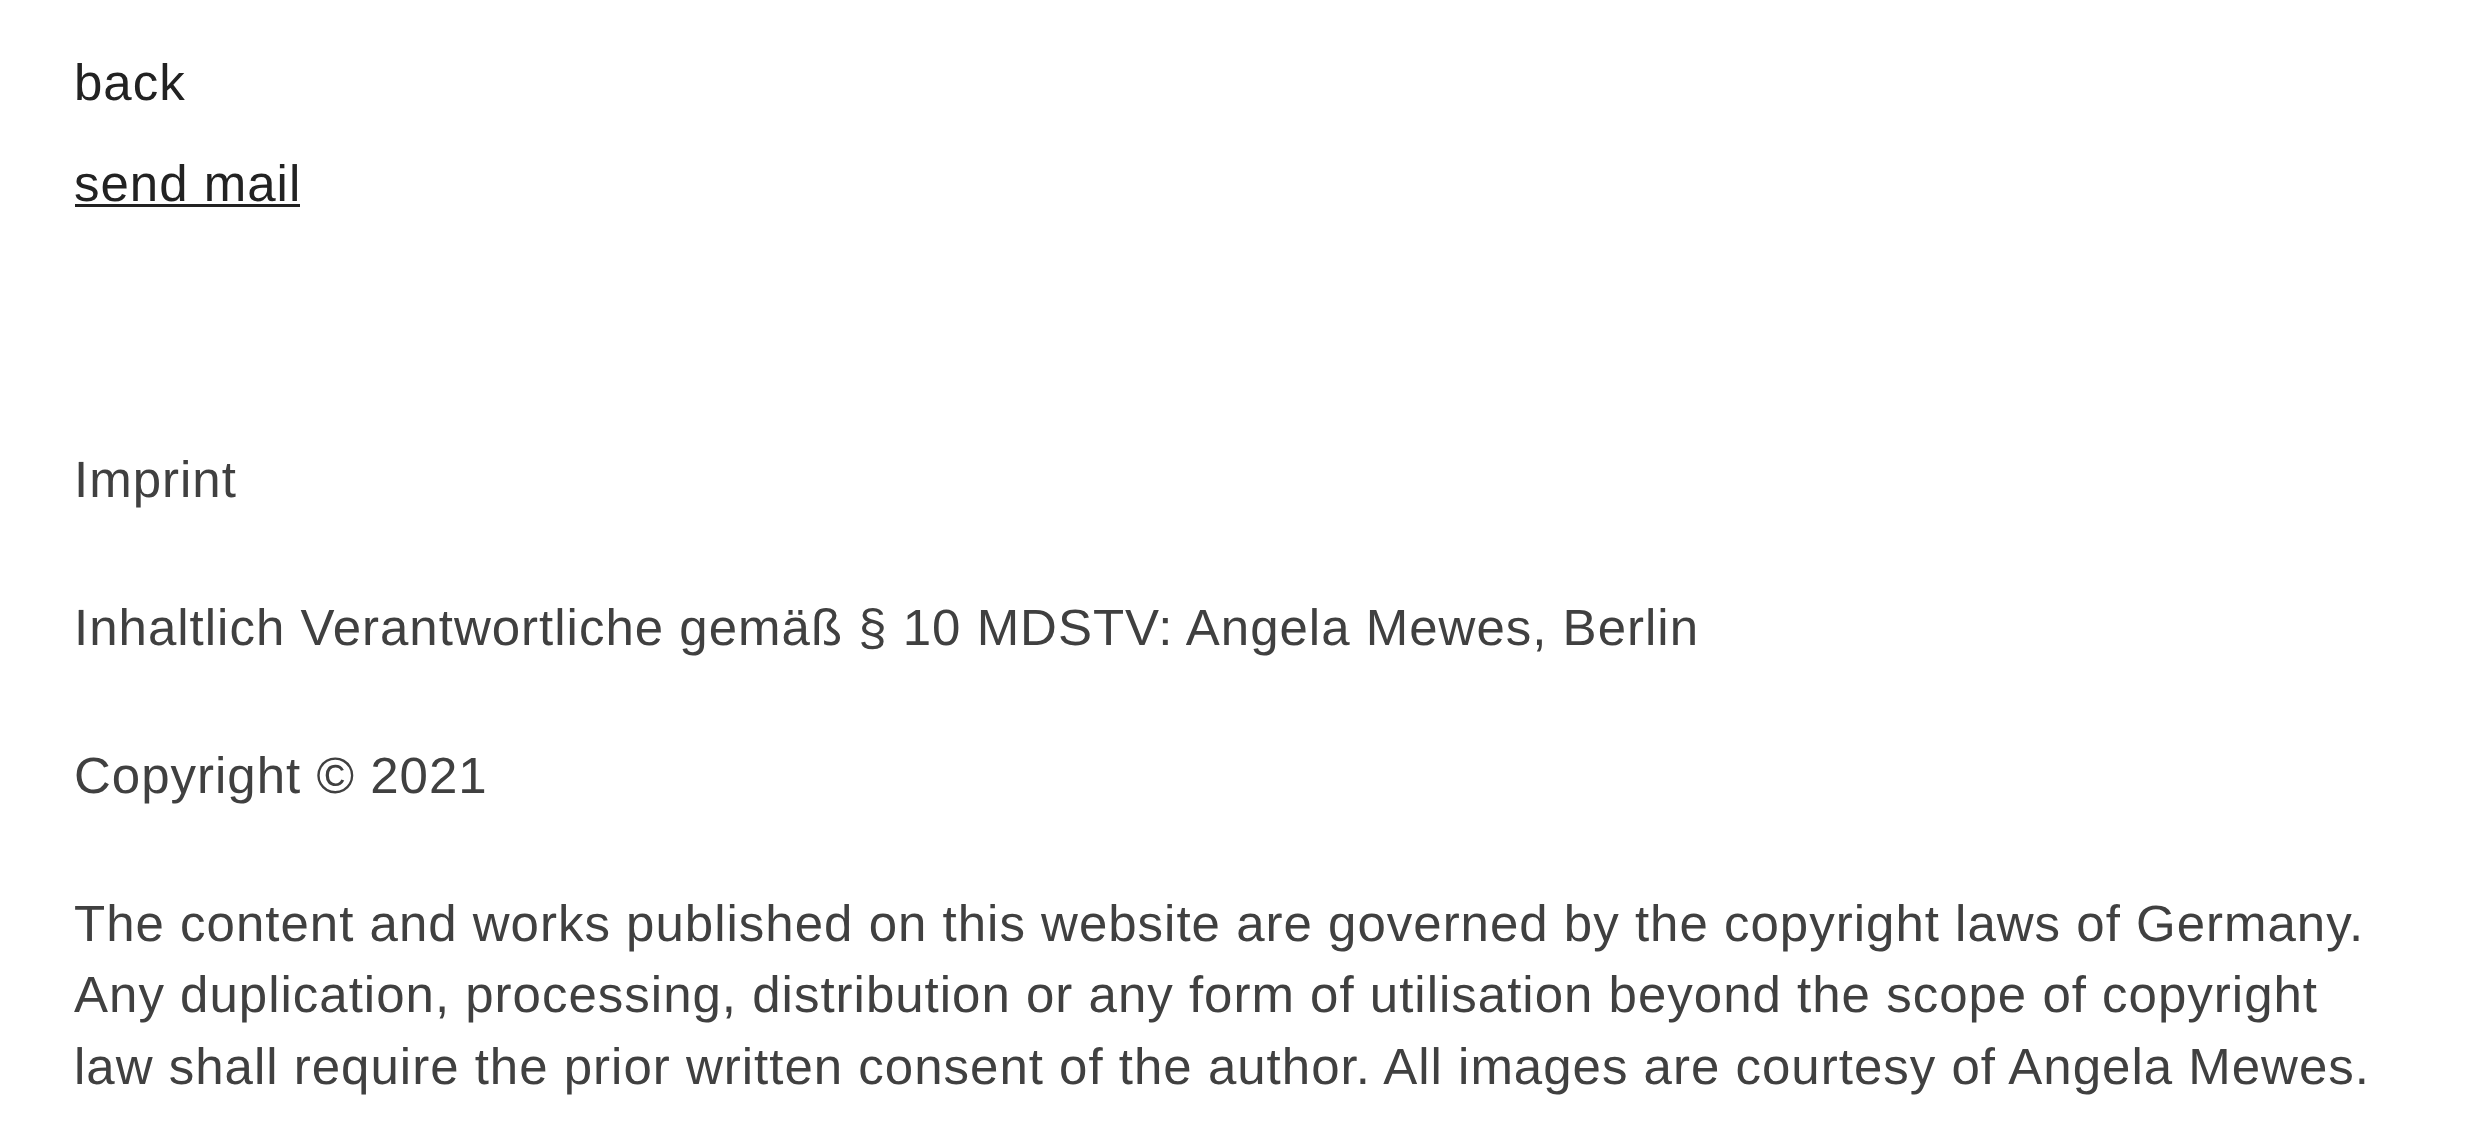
<?xml version="1.0" encoding="UTF-8"?>
<svg xmlns="http://www.w3.org/2000/svg" width="2465" height="1136">
    <rect width="100%" height="100%" fill="#FFFFFF"/>
    <text font-family="Liberation Sans" font-size="51" letter-spacing="1" fill="#222222">
        <tspan x="74" y="100">back</tspan>
        <tspan x="74" y="201">send mail</tspan>
    </text>
    <rect x="75" y="204" width="225" height="3" fill="#222222"/>
    <text x="74" y="497" font-family="Liberation Sans" font-size="51" letter-spacing="1" fill="#404040">Imprint</text>
    <text x="74" y="645" font-family="Liberation Sans" font-size="51" letter-spacing="1" fill="#404040">Inhaltlich Verantwortliche gemäß § 10 MDSTV: Angela Mewes, Berlin</text>
    <text x="74" y="793" font-family="Liberation Sans" font-size="51" letter-spacing="1" fill="#404040">Copyright © 2021</text>
    <text font-family="Liberation Sans" font-size="51" letter-spacing="1" fill="#404040">
        <tspan x="74" y="941">The content and works published on this website are governed by the copyright laws of Germany.</tspan>
        <tspan x="74" y="1012">Any duplication, processing, distribution or any form of utilisation beyond the scope of copyright</tspan>
        <tspan x="74" y="1084">law shall require the prior written consent of the author. All images are courtesy of Angela Mewes.</tspan>
    </text>
</svg>
